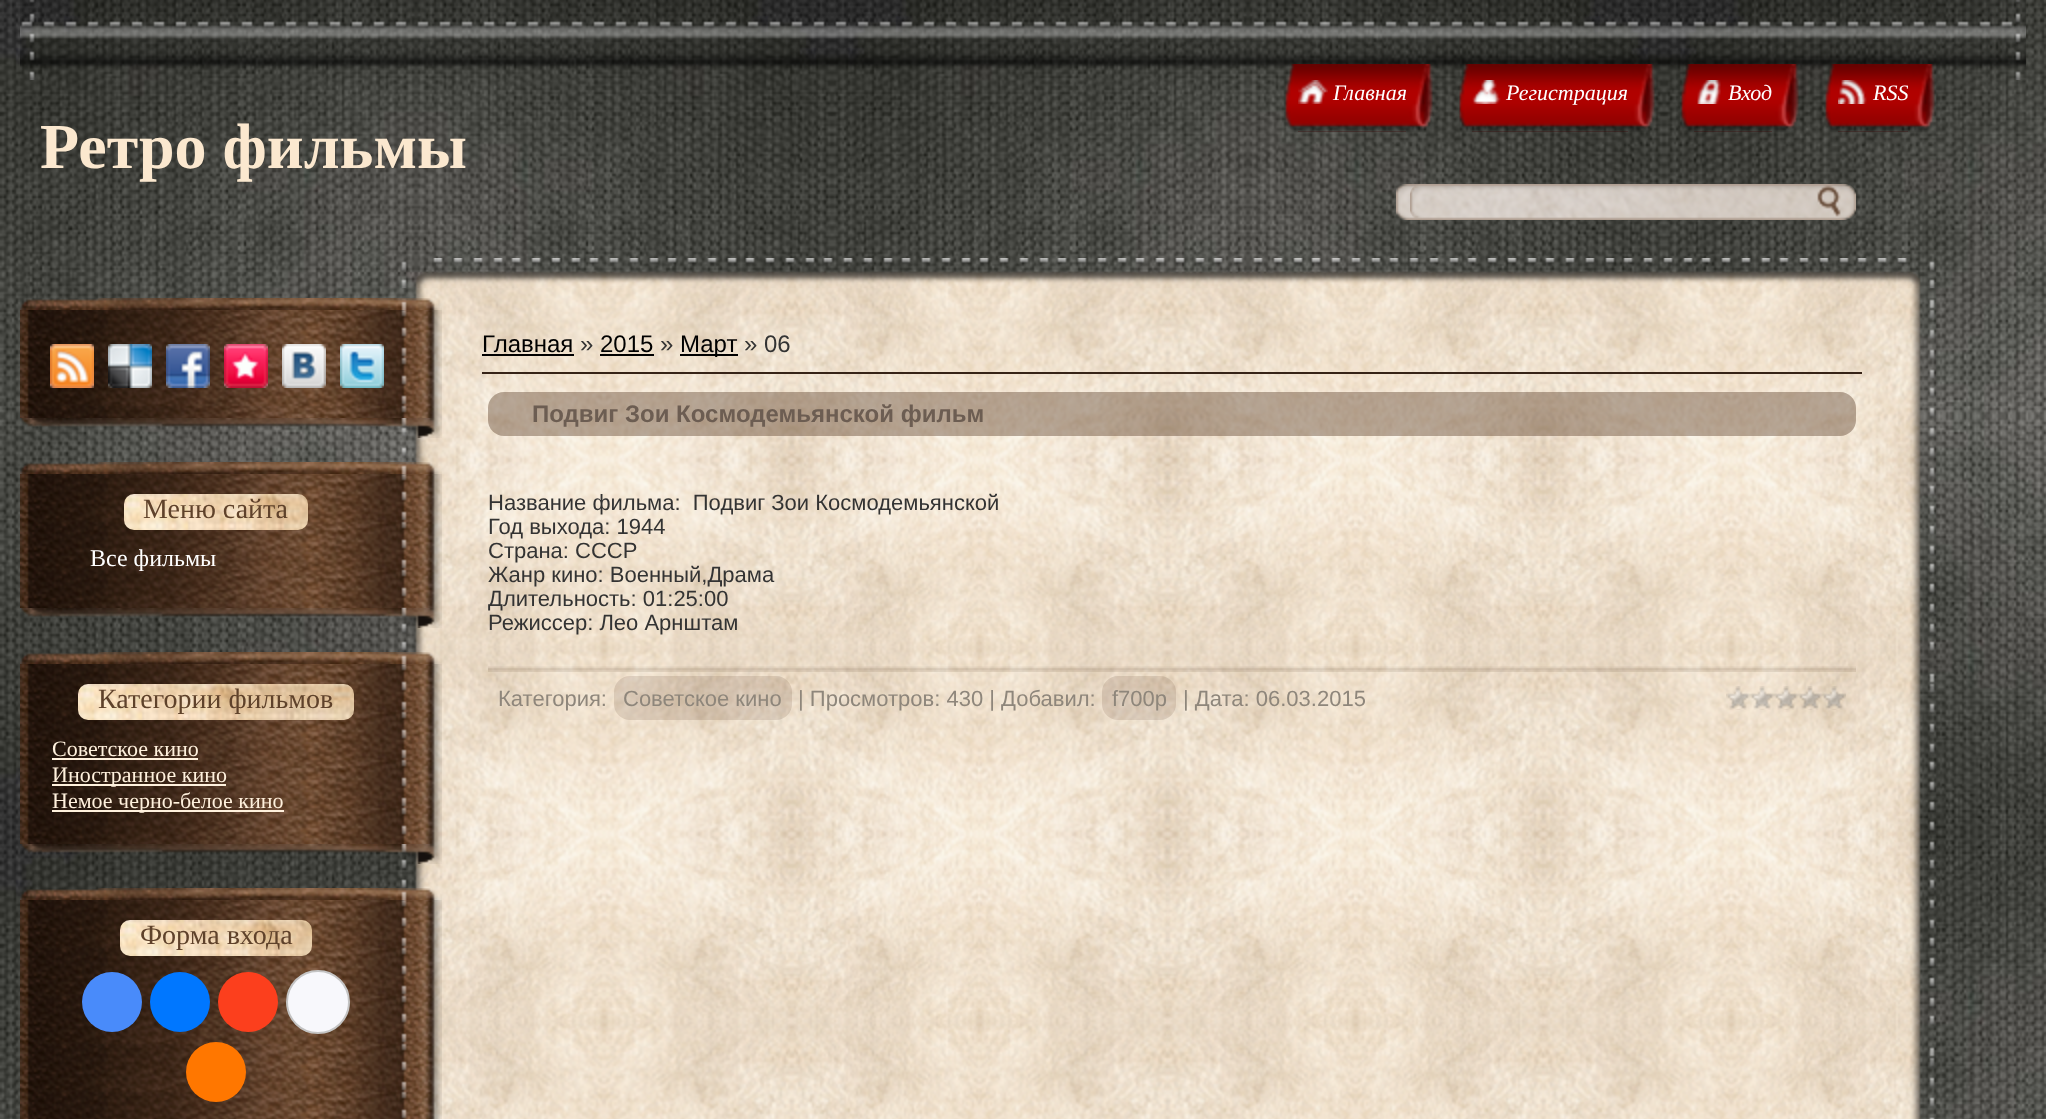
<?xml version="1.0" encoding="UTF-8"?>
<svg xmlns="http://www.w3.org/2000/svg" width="2046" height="1119">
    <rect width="100%" height="100%" fill="#FFFFFF"/>
    <image x="0" y="0" width="2046" height="1119" href="img_01.png"/>
    <image x="20" y="0" width="2006" height="80" href="img_02.png"/>
    <image x="1284" y="64" width="14" height="68" href="img_03.png"/>
    <image x="1298" y="64" width="108" height="68" href="img_04.png"/>
    <image x="1298" y="80" width="30" height="24" href="img_05.png"/>
    <text x="1333" y="100" font-family="Liberation Serif" font-size="22" font-style="italic" fill="#FFFFFF">Главная</text>
    <image x="1406" y="64" width="27" height="68" href="img_06.png"/>
    <image x="1459" y="64" width="13" height="68" href="img_07.png"/>
    <image x="1472" y="64" width="156" height="68" href="img_08.png"/>
    <image x="1472" y="80" width="29" height="24" href="img_09.png"/>
    <text x="1506" y="100" font-family="Liberation Serif" font-size="22" font-style="italic" fill="#FFFFFF">Регистрация</text>
    <image x="1628" y="64" width="27" height="68" href="img_10.png"/>
    <image x="1681" y="64" width="13" height="68" href="img_11.png"/>
    <image x="1694" y="64" width="78" height="68" href="img_12.png"/>
    <image x="1697" y="80" width="24" height="24" href="img_13.png"/>
    <text x="1728" y="100" font-family="Liberation Serif" font-size="22" font-style="italic" fill="#FFFFFF">Вход</text>
    <image x="1772" y="64" width="27" height="68" href="img_14.png"/>
    <image x="1824" y="64" width="14" height="68" href="img_15.png"/>
    <image x="1838" y="64" width="70" height="68" href="img_16.png"/>
    <image x="1838" y="80" width="29" height="24" href="img_17.png"/>
    <text x="1873" y="100" font-family="Liberation Serif" font-size="22" font-style="italic" fill="#FFFFFF">RSS</text>
    <image x="1908" y="64" width="27" height="68" href="img_18.png"/>
    <text x="40" y="168" font-family="Liberation Serif" font-size="64" font-weight="700" fill="#FBE8CF">Ретро фильмы</text>
    <image x="1396" y="184" width="443" height="36" href="img_19.png"/>
    <image x="1410" y="184" width="446" height="36" href="img_20.png"/>
    <image x="400" y="258" width="1536" height="30" href="img_21.png"/>
    <image x="400" y="288" width="1536" height="831" href="img_22.png"/>
    <image x="20" y="298" width="422" height="12" href="img_23.png"/>
    <image x="20" y="310" width="422" height="108" href="img_24.png"/>
    <image x="50" y="344" width="44" height="44" href="img_25.png"/>
    <image x="108" y="344" width="44" height="44" href="img_26.png"/>
    <image x="166" y="344" width="44" height="44" href="img_27.png"/>
    <image x="224" y="344" width="44" height="44" href="img_28.png"/>
    <image x="282" y="344" width="44" height="44" href="img_29.png"/>
    <image x="340" y="344" width="44" height="44" href="img_30.png"/>
    <image x="21" y="418" width="421" height="20" href="img_31.png"/>
    <image x="20" y="462" width="422" height="12" href="img_32.png"/>
    <image x="20" y="474" width="422" height="134" href="img_33.png"/>
    <image x="124" y="494" width="184" height="36" href="img_34.png"/>
    <text x="143" y="518" font-family="Liberation Serif" font-size="28" fill="#5F422B">Меню сайта</text>
    <text x="90" y="566" font-family="Liberation Serif" font-size="24" fill="#FFFFFF">Все фильмы</text>
    <image x="21" y="608" width="421" height="20" href="img_35.png"/>
    <image x="20" y="652" width="422" height="12" href="img_36.png"/>
    <image x="20" y="664" width="422" height="180" href="img_37.png"/>
    <image x="78" y="684" width="276" height="36" href="img_38.png"/>
    <text x="98" y="708" font-family="Liberation Serif" font-size="28" fill="#5F422B">Категории фильмов</text>
    <text x="52" y="756" font-family="Liberation Serif" font-size="22" fill="#FFF1DD">Советское кино</text>
    <rect x="52" y="758" width="146" height="2" fill="#FFF1DD"/>
    <rect x="52" y="784" width="174" height="2" fill="#FFF1DD"/>
    <text x="52" y="782" font-family="Liberation Serif" font-size="22" fill="#FFF1DD">Иностранное кино</text>
    <rect x="52" y="810" width="232" height="2" fill="#FFF1DD"/>
    <text x="52" y="808" font-family="Liberation Serif" font-size="22" fill="#FFF1DD">Немое черно-белое кино</text>
    <image x="21" y="844" width="421" height="20" href="img_39.png"/>
    <image x="20" y="888" width="422" height="12" href="img_40.png"/>
    <image x="20" y="900" width="422" height="219" href="img_41.png"/>
    <image x="120" y="920" width="192" height="36" href="img_42.png"/>
    <text x="140" y="944" font-family="Liberation Serif" font-size="28" fill="#5F422B">Форма входа</text>
    <circle cx="112" cy="1002" r="30" fill="#498BFA"/>
    <circle cx="180" cy="1002" r="30" fill="#0077FF"/>
    <circle cx="248" cy="1002" r="30" fill="#FC3F1D"/>
    <circle cx="318" cy="1002" r="31" fill="#F8F8FC" stroke="#C4C4C4" stroke-width="2"/>
    <circle cx="216" cy="1072" r="30" fill="#FF7700"/>
    <text x="482" y="352" font-family="Liberation Sans" font-size="24" fill="#000000">Главная</text>
    <rect x="482" y="354" width="92" height="2" fill="#000000"/>
    <text x="580" y="352" font-family="Liberation Sans" font-size="24" fill="#333333">»</text>
    <text x="600" y="352" font-family="Liberation Sans" font-size="24" fill="#000000">2015</text>
    <rect x="600" y="354" width="54" height="2" fill="#000000"/>
    <text x="660" y="352" font-family="Liberation Sans" font-size="24" fill="#333333">»</text>
    <rect x="680" y="354" width="58" height="2" fill="#000000"/>
    <text x="680" y="352" font-family="Liberation Sans" font-size="24" fill="#000000">Март</text>
    <text x="744" y="352" font-family="Liberation Sans" font-size="24" fill="#333333">» 06</text>
    <rect x="482" y="372" width="1380" height="2" fill="#362316"/>
    <image x="488" y="392" width="1368" height="44" href="img_43.png"/>
    <text x="532" y="422" font-family="Liberation Sans" font-size="24" font-weight="700" fill="#6C5D52">Подвиг Зои Космодемьянской фильм</text>
    <text font-family="Liberation Sans" font-size="22" fill="#333333" xml:space="preserve"><tspan x="488" y="510">Название фильма:  Подвиг Зои Космодемьянской</tspan><tspan x="488" y="534">Год выхода: 1944</tspan><tspan x="488" y="558">Страна: СССР</tspan><tspan x="488" y="582">Жанр кино: Военный,Драма</tspan><tspan x="488" y="606">Длительность: 01:25:00</tspan><tspan x="488" y="630">Режиссер: Лео Арнштам</tspan></text>
    <image x="488" y="666" width="1368" height="6" href="img_44.png"/>
    <text x="498" y="706" font-family="Liberation Sans" font-size="22" fill="#8E867B">Категория:</text>
    <image x="614" y="676" width="178" height="44" href="img_45.png"/>
    <text x="798" y="706" font-family="Liberation Sans" font-size="22" fill="#8E867B">| Просмотров: 430 | Добавил:</text>
    <image x="1102" y="676" width="74" height="44" href="img_46.png"/>
    <image x="1726" y="686" width="120" height="24" href="img_47.png"/>
    <text x="623" y="706" font-family="Liberation Sans" font-size="22" fill="#8E867B">Советское кино</text>
    <text x="1112" y="706" font-family="Liberation Sans" font-size="22" fill="#8E867B">f700p</text>
    <text x="1183" y="706" font-family="Liberation Sans" font-size="22" fill="#8E867B">| Дата: 06.03.2015</text>
</svg>
